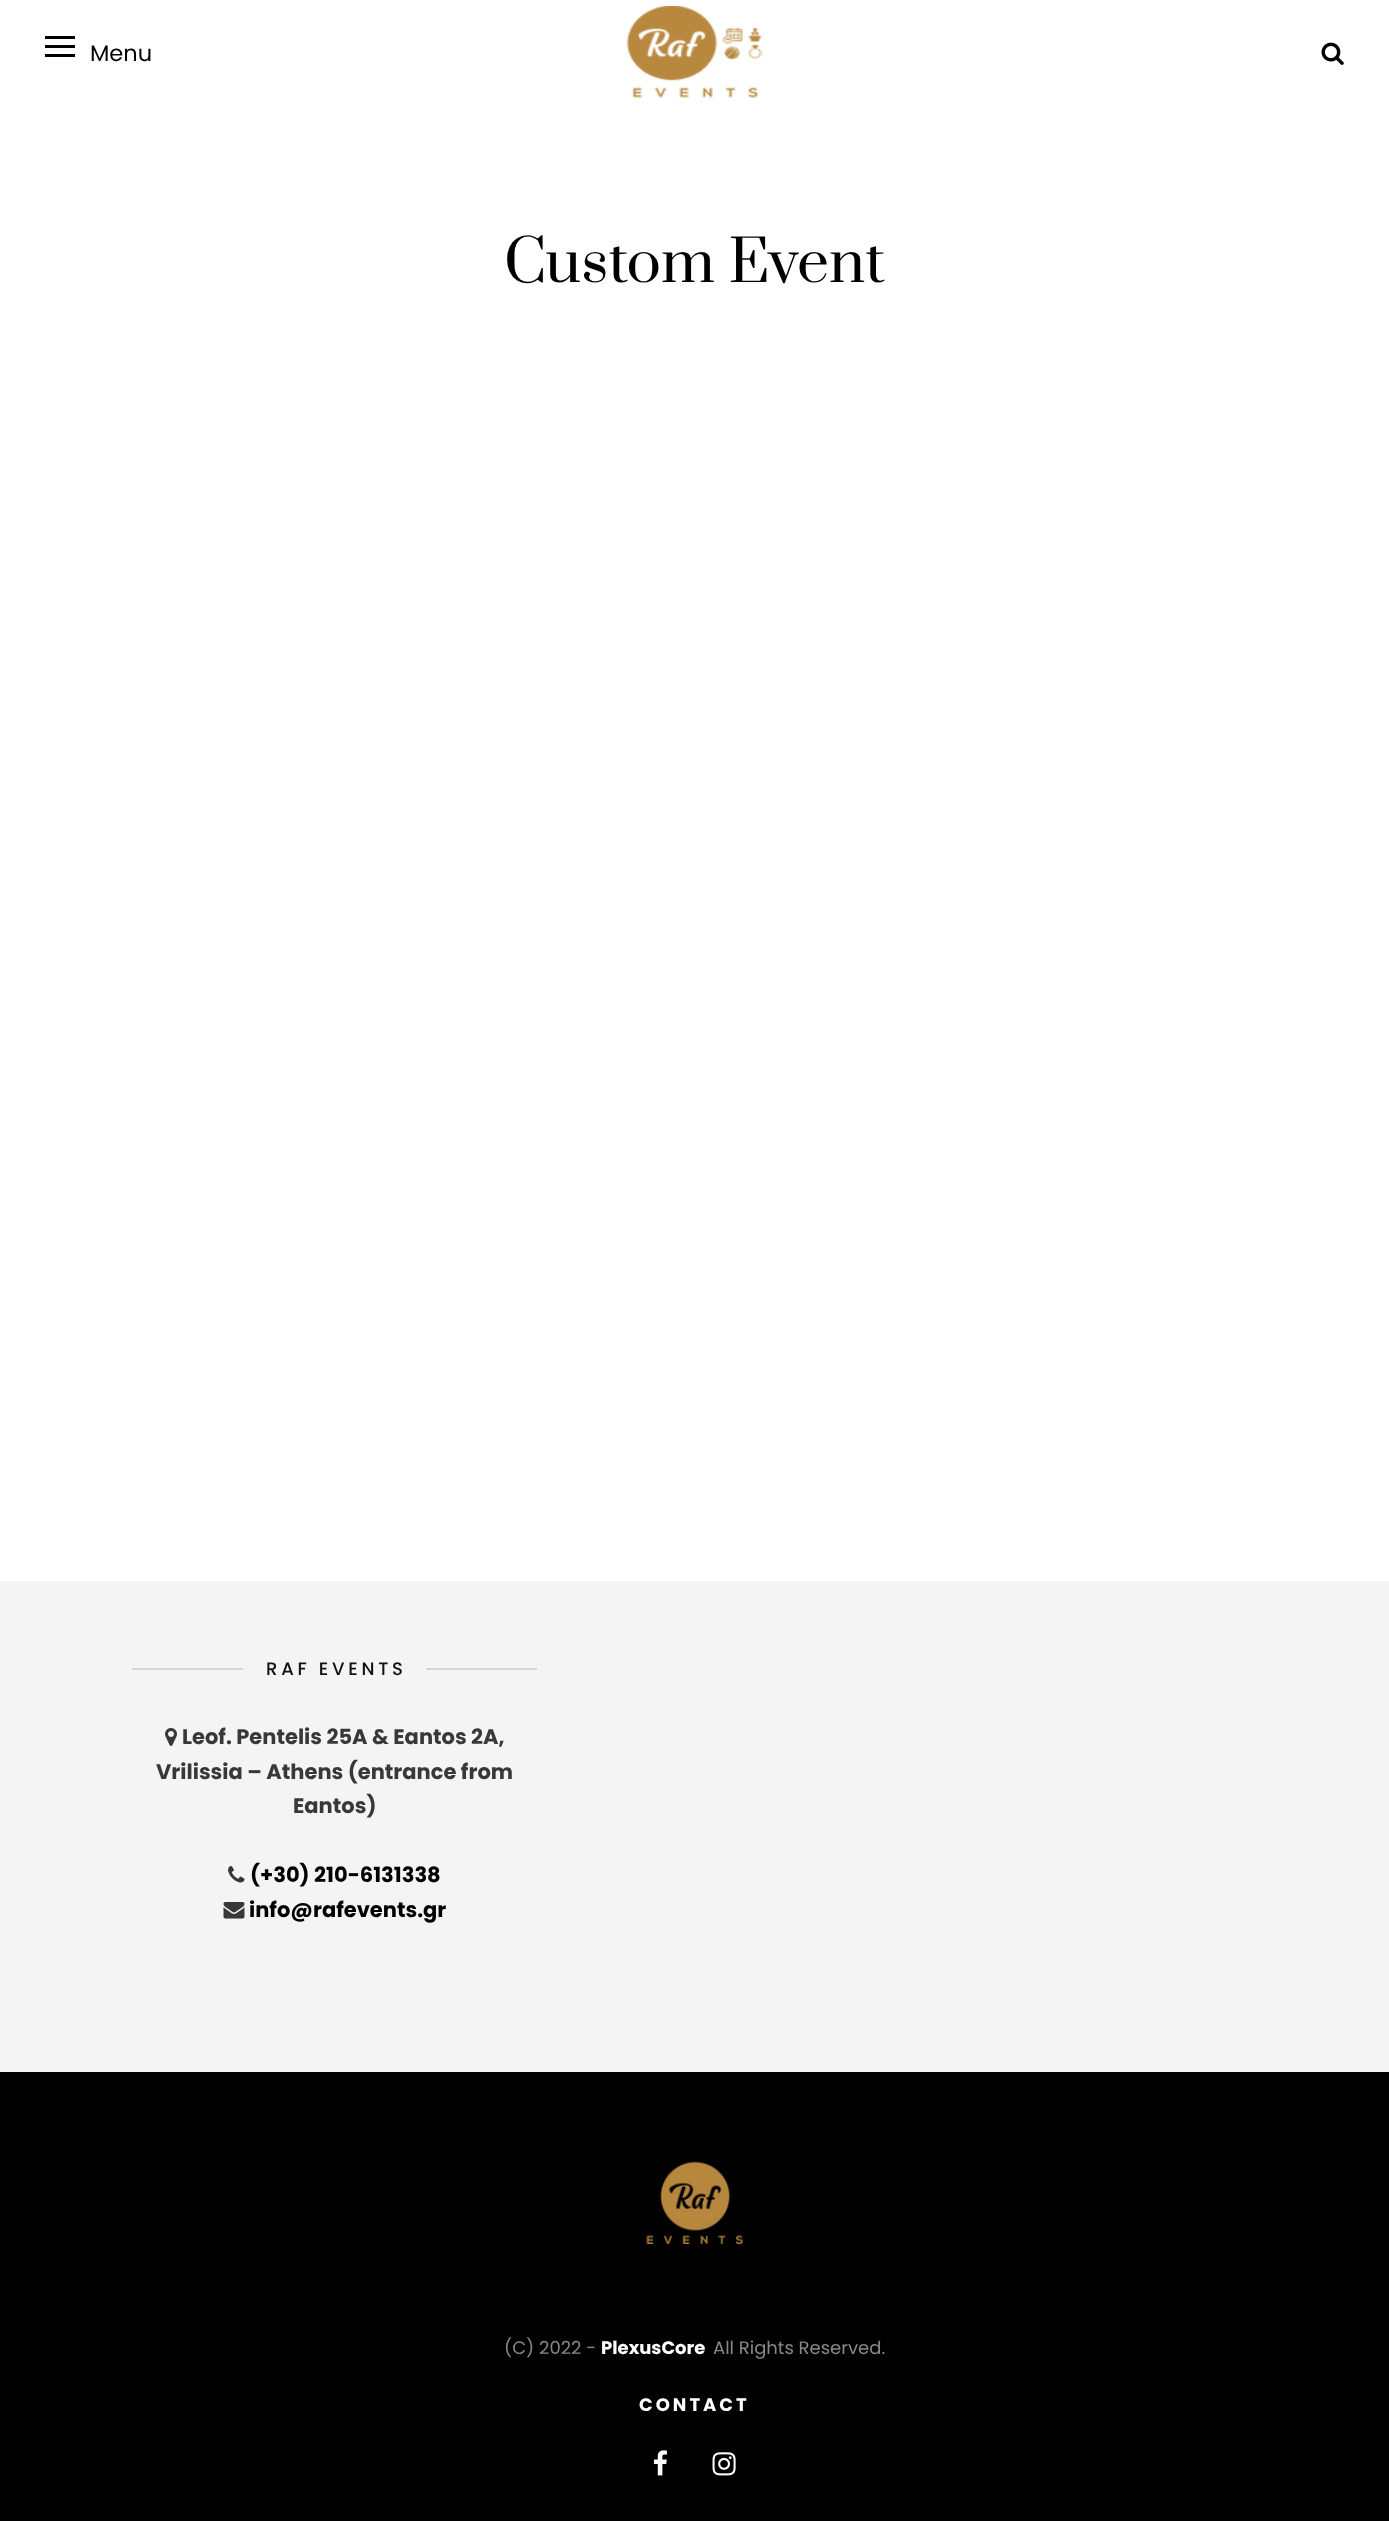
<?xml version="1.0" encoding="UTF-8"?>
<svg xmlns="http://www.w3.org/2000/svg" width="1389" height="2521">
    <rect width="100%" height="100%" fill="#FFFFFF"/>
    <rect x="45" y="36" width="30" height="3" fill="#000000"/>
    <rect x="45" y="54" width="30" height="3" fill="#000000"/>
    <rect x="45" y="45" width="30" height="3" fill="#000000"/>
    <text x="90" y="61" font-family="Poppins" font-size="22.5" fill="#000000">Menu</text>
    <image x="626" y="6" width="137" height="92" href="img_01.png"/>
    <image x="1321" y="42" width="23" height="23" href="img_02.png"/>
    <text x="504" y="282" font-family="Prata" font-size="57" fill="#000000">Custom Event</text>
    <rect x="0" y="1581" width="1389" height="491" fill="#F4F4F4"/>
    <rect x="132" y="1668" width="111" height="2" fill="#D5D5D5"/>
    <text x="266" y="1675" font-family="Poppins" font-size="18" font-weight="500" letter-spacing="3.75" fill="#111111">RAF EVENTS</text>
    <rect x="426" y="1668" width="111" height="2" fill="#D5D5D5"/>
    <text x="182" y="1744" font-family="Poppins" font-size="21" font-weight="700" fill="#383838">Leof. Pentelis 25A &amp; Eantos 2A,</text>
    <text x="156" y="1779" font-family="Poppins" font-size="21" font-weight="700" fill="#383838">Vrilissia – Athens (entrance from</text>
    <text x="293" y="1813" font-family="Poppins" font-size="21" font-weight="700" fill="#383838">Eantos)</text>
    <image x="228" y="1866" width="17" height="17" href="img_03.png"/>
    <text x="250" y="1882" font-family="Poppins" font-size="21" font-weight="700" fill="#000000">(+30) 210-6131338</text>
    <image x="223" y="1902" width="22" height="17" href="img_04.png"/>
    <text x="249" y="1917" font-family="Poppins" font-size="21" font-weight="700" fill="#000000">info@rafevents.gr</text>
    <image x="165" y="1728" width="12" height="18" href="img_05.png"/>
    <rect x="0" y="2072" width="1389" height="449" fill="#010101"/>
    <image x="646" y="2161" width="97" height="83" href="img_06.png"/>
    <text x="504" y="2354" font-family="Poppins" font-size="18" fill="#888888">(C) 2022 -</text>
    <text x="601" y="2354" font-family="Poppins" font-size="18" font-weight="700" fill="#FFFFFF">PlexusCore</text>
    <text x="713" y="2354" font-family="Poppins" font-size="18" fill="#888888">All Rights Reserved.</text>
    <text x="639" y="2411" font-family="Poppins" font-size="18" font-weight="700" letter-spacing="3" fill="#FFFFFF">CONTACT</text>
    <image x="653" y="2450" width="14" height="26" href="img_07.png"/>
    <image x="712" y="2452" width="24" height="24" href="img_08.png"/>
</svg>
